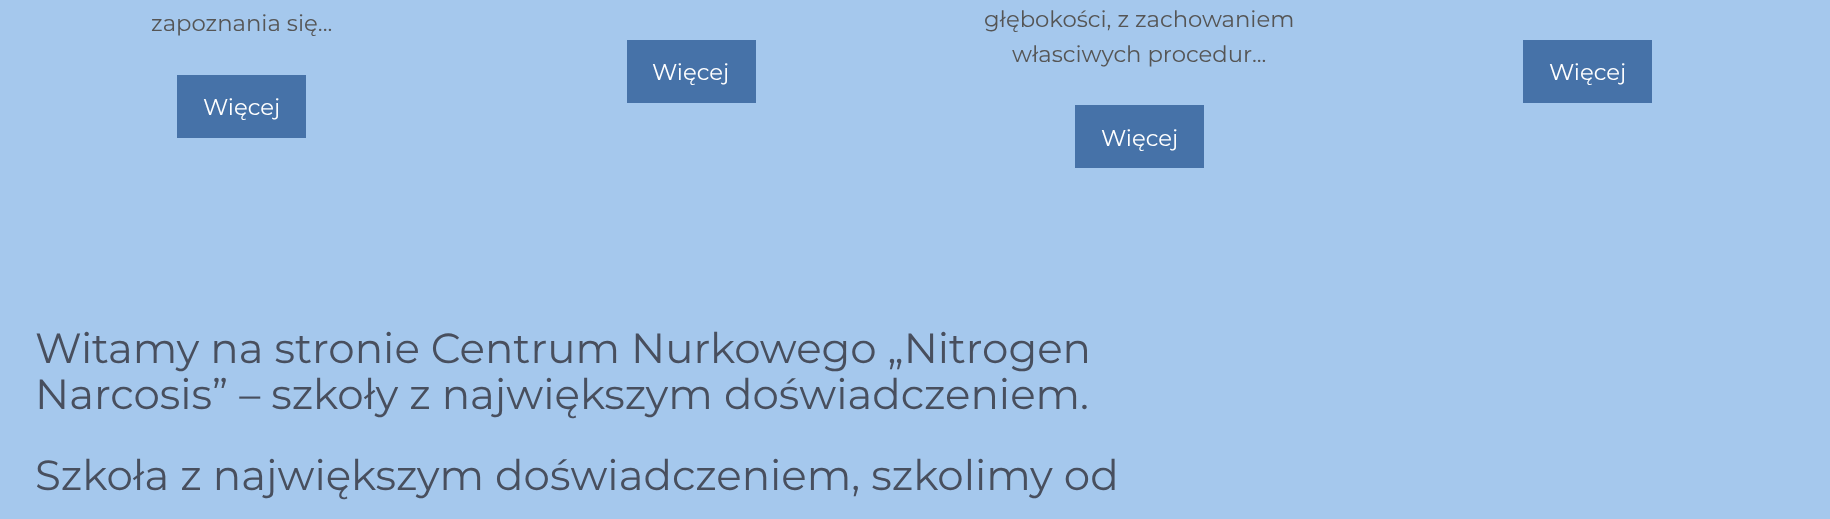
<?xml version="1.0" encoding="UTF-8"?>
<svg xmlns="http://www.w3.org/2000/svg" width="1830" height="519">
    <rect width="100%" height="100%" fill="#A5C8ED"/>
    <text x="151" y="31" font-family="Montserrat" font-size="22.75" fill="#555555">zapoznania się...</text>
    <rect x="177" y="75" width="129" height="63" fill="#4672A8"/>
    <text x="203" y="115" font-family="Montserrat" font-size="22.75" fill="#FFFFFF">Więcej</text>
    <rect x="627" y="40" width="129" height="63" fill="#4672A8"/>
    <text x="652" y="80" font-family="Montserrat" font-size="22.75" fill="#FFFFFF">Więcej</text>
    <text x="984" y="27" font-family="Montserrat" font-size="22.75" fill="#555555">głębokości, z zachowaniem</text>
    <text x="1012" y="62" font-family="Montserrat" font-size="22.75" fill="#555555">własciwych procedur...</text>
    <rect x="1075" y="105" width="129" height="63" fill="#4672A8"/>
    <text x="1101" y="146" font-family="Montserrat" font-size="22.75" fill="#FFFFFF">Więcej</text>
    <rect x="1523" y="40" width="129" height="63" fill="#4672A8"/>
    <text x="1549" y="80" font-family="Montserrat" font-size="22.75" fill="#FFFFFF">Więcej</text>
    <text font-family="Montserrat" font-size="42" fill="#484F5E">
        <tspan x="35" y="363">Witamy na stronie Centrum Nurkowego „Nitrogen</tspan>
        <tspan x="35" y="409">Narcosis” – szkoły z największym doświadczeniem.</tspan>
        <tspan x="35" y="490">Szkoła z największym doświadczeniem, szkolimy od</tspan>
    </text>
</svg>
